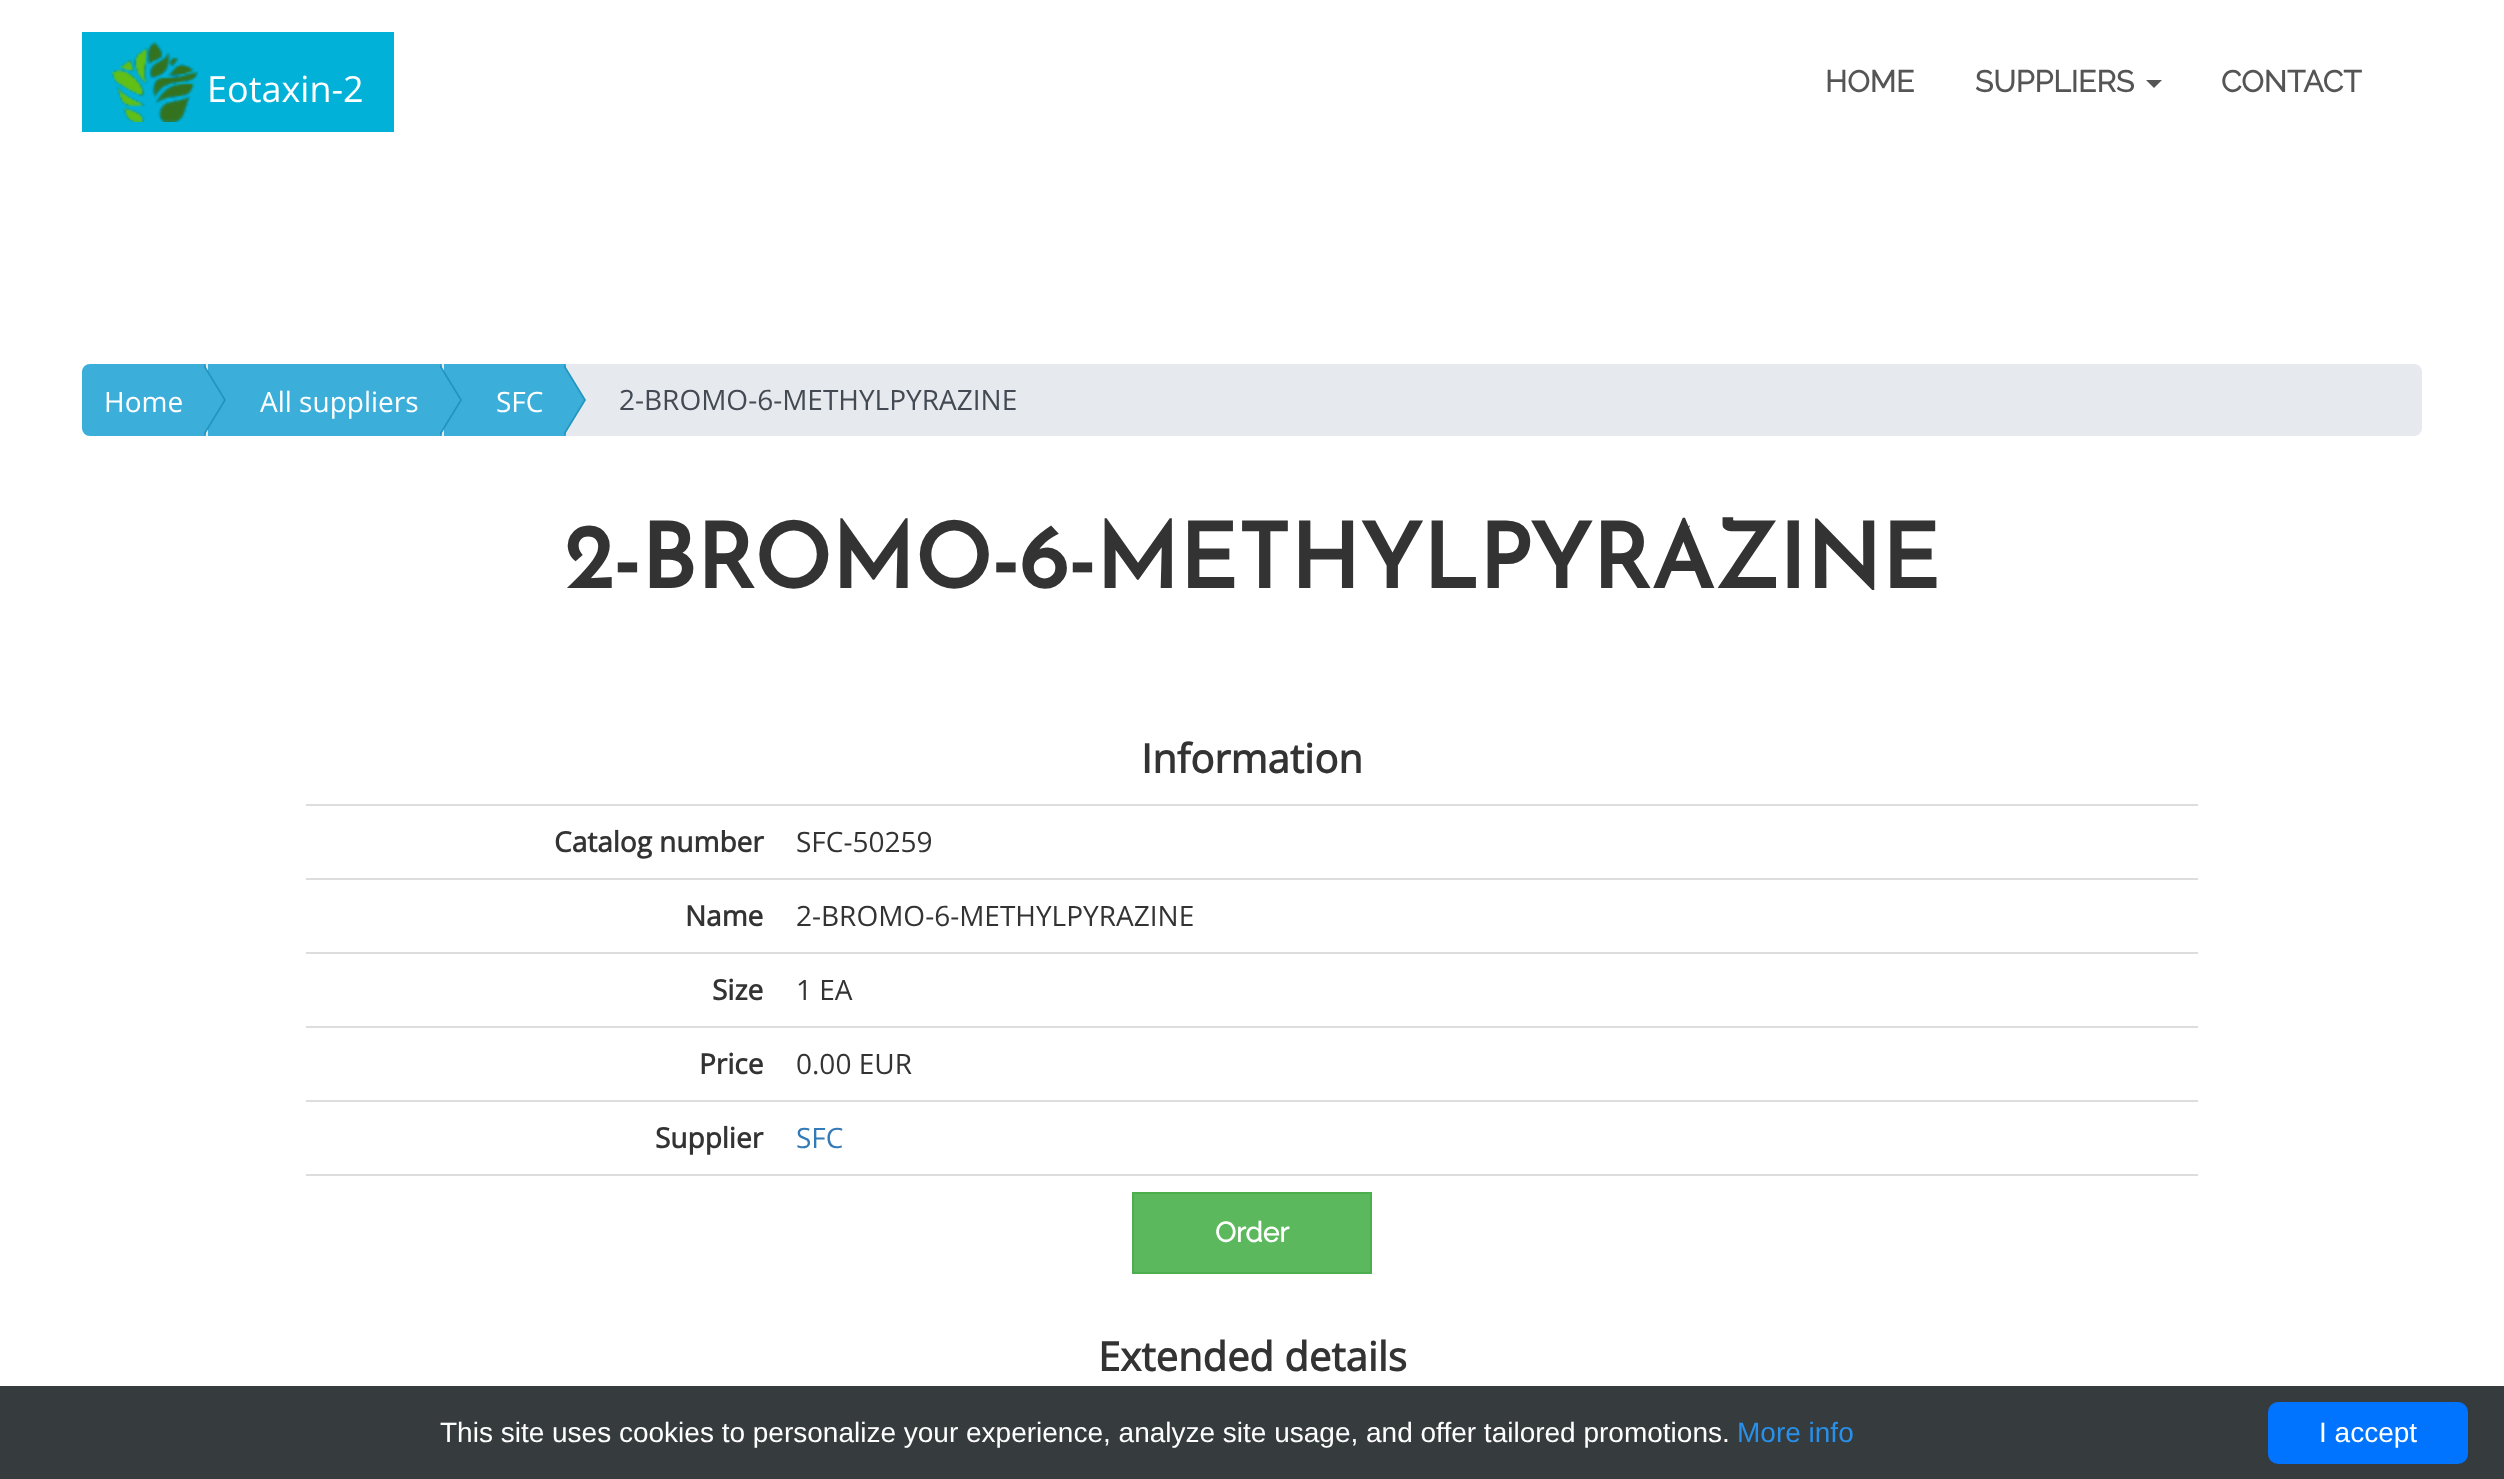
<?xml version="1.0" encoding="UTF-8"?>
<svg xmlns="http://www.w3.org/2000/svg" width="2504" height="1479">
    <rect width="100%" height="100%" fill="#FFFFFF"/>
    <rect x="82" y="32" width="312" height="100" fill="#01B1D7"/>
    <image x="112" y="42" width="86" height="80" href="img_01.png"/>
    <text x="207" y="102" font-family="Open Sans" font-size="36" fill="#FFFFFF">Eotaxin-2</text>
    <text x="1825" y="92" font-family="Raleway" font-size="30" font-weight="700" fill="#555555">HOME</text>
    <text x="1975" y="92" font-family="Raleway" font-size="30" font-weight="700" fill="#555555">SUPPLIERS</text>
    <path d="M 2146 80 H 2162 L 2154 88 Z" fill="#555555"/>
    <text x="2221" y="92" font-family="Raleway" font-size="30" font-weight="700" fill="#555555">CONTACT</text>
    <rect x="82" y="364" width="2340" height="72" rx="8" fill="#E6E9ED"/>
    <path d="M 90 365 H 205 V 435 H 90 C 86 435 83 432 83 428 V 372 C 83 368 86 365 90 365 Z" fill="#3BAFDA" stroke="#3BAFDA" stroke-width="2"/>
    <rect x="208" y="364" width="234" height="72" fill="#3BAFDA"/>
    <path d="M 204 436 V 364 L 226 400 Z" fill="#2494BE"/>
    <path d="M 202 436 V 364 L 224 400 Z" fill="#3BAFDA"/>
    <text x="104" y="412" font-family="Open Sans" font-size="28" fill="#FFFFFF">Home</text>
    <rect x="444" y="364" width="122" height="72" fill="#3BAFDA"/>
    <path d="M 440 436 V 364 L 462 400 Z" fill="#2494BE"/>
    <path d="M 438 436 V 364 L 460 400 Z" fill="#3BAFDA"/>
    <text x="260" y="412" font-family="Open Sans" font-size="28" fill="#FFFFFF">All suppliers</text>
    <path d="M 564 436 V 364 L 586 400 Z" fill="#2494BE"/>
    <path d="M 562 436 V 364 L 584 400 Z" fill="#3BAFDA"/>
    <text x="496" y="412" font-family="Open Sans" font-size="28" fill="#FFFFFF">SFC</text>
    <text x="619" y="410" font-family="Open Sans" font-size="28" fill="#434A54">2-BROMO-6-METHYLPYRAZINE</text>
    <text x="564" y="588" font-family="Josefin Sans" font-size="90" font-weight="700" fill="#333333">2-BROMO-6-METHYLPYRAZINE</text>
    <text x="1141" y="773" font-family="Open Sans" font-size="40" font-weight="700" fill="#333333">Information</text>
    <text x="554" y="852" font-family="Open Sans" font-size="28" font-weight="700" fill="#333333">Catalog number</text>
    <rect x="306" y="804" width="1892" height="2" fill="#DDDDDD"/>
    <text x="796" y="852" font-family="Open Sans" font-size="28" fill="#333333">SFC-50259</text>
    <text x="685" y="926" font-family="Open Sans" font-size="28" font-weight="700" fill="#333333">Name</text>
    <rect x="306" y="878" width="1892" height="2" fill="#DDDDDD"/>
    <text x="796" y="926" font-family="Open Sans" font-size="28" fill="#333333">2-BROMO-6-METHYLPYRAZINE</text>
    <text x="712" y="1000" font-family="Open Sans" font-size="28" font-weight="700" fill="#333333">Size</text>
    <rect x="306" y="952" width="1892" height="2" fill="#DDDDDD"/>
    <text x="796" y="1000" font-family="Open Sans" font-size="28" fill="#333333">1 EA</text>
    <text x="699" y="1074" font-family="Open Sans" font-size="28" font-weight="700" fill="#333333">Price</text>
    <rect x="306" y="1026" width="1892" height="2" fill="#DDDDDD"/>
    <text x="796" y="1074" font-family="Open Sans" font-size="28" fill="#333333">0.00 EUR</text>
    <text x="655" y="1148" font-family="Open Sans" font-size="28" font-weight="700" fill="#333333">Supplier</text>
    <rect x="306" y="1100" width="1892" height="2" fill="#DDDDDD"/>
    <text x="796" y="1148" font-family="Open Sans" font-size="28" fill="#337AB7">SFC</text>
    <rect x="306" y="1174" width="1892" height="2" fill="#DDDDDD"/>
    <rect x="1133" y="1193" width="238" height="80" fill="#5CB85C" stroke="#4CAE4C" stroke-width="2"/>
    <text x="1215" y="1242" font-family="Raleway" font-size="28" font-weight="700" fill="#FFFFFF">Order</text>
    <text x="1098" y="1371" font-family="Open Sans" font-size="40" font-weight="700" fill="#333333">Extended details</text>
    <rect x="0" y="1386" width="2504" height="93" fill="#363B3E"/>
    <text x="440" y="1442" font-family="Liberation Sans" font-size="28" fill="#FFFFFF">This site uses cookies to personalize your experience, analyze site usage, and offer tailored promotions.</text>
    <text x="1737" y="1442" font-family="Liberation Sans" font-size="28" fill="#2990EA">More info</text>
    <rect x="2268" y="1402" width="200" height="62" rx="10" fill="#0073FF"/>
    <text x="2319" y="1442" font-family="Liberation Sans" font-size="28" fill="#FFFFFF">I accept</text>
</svg>
